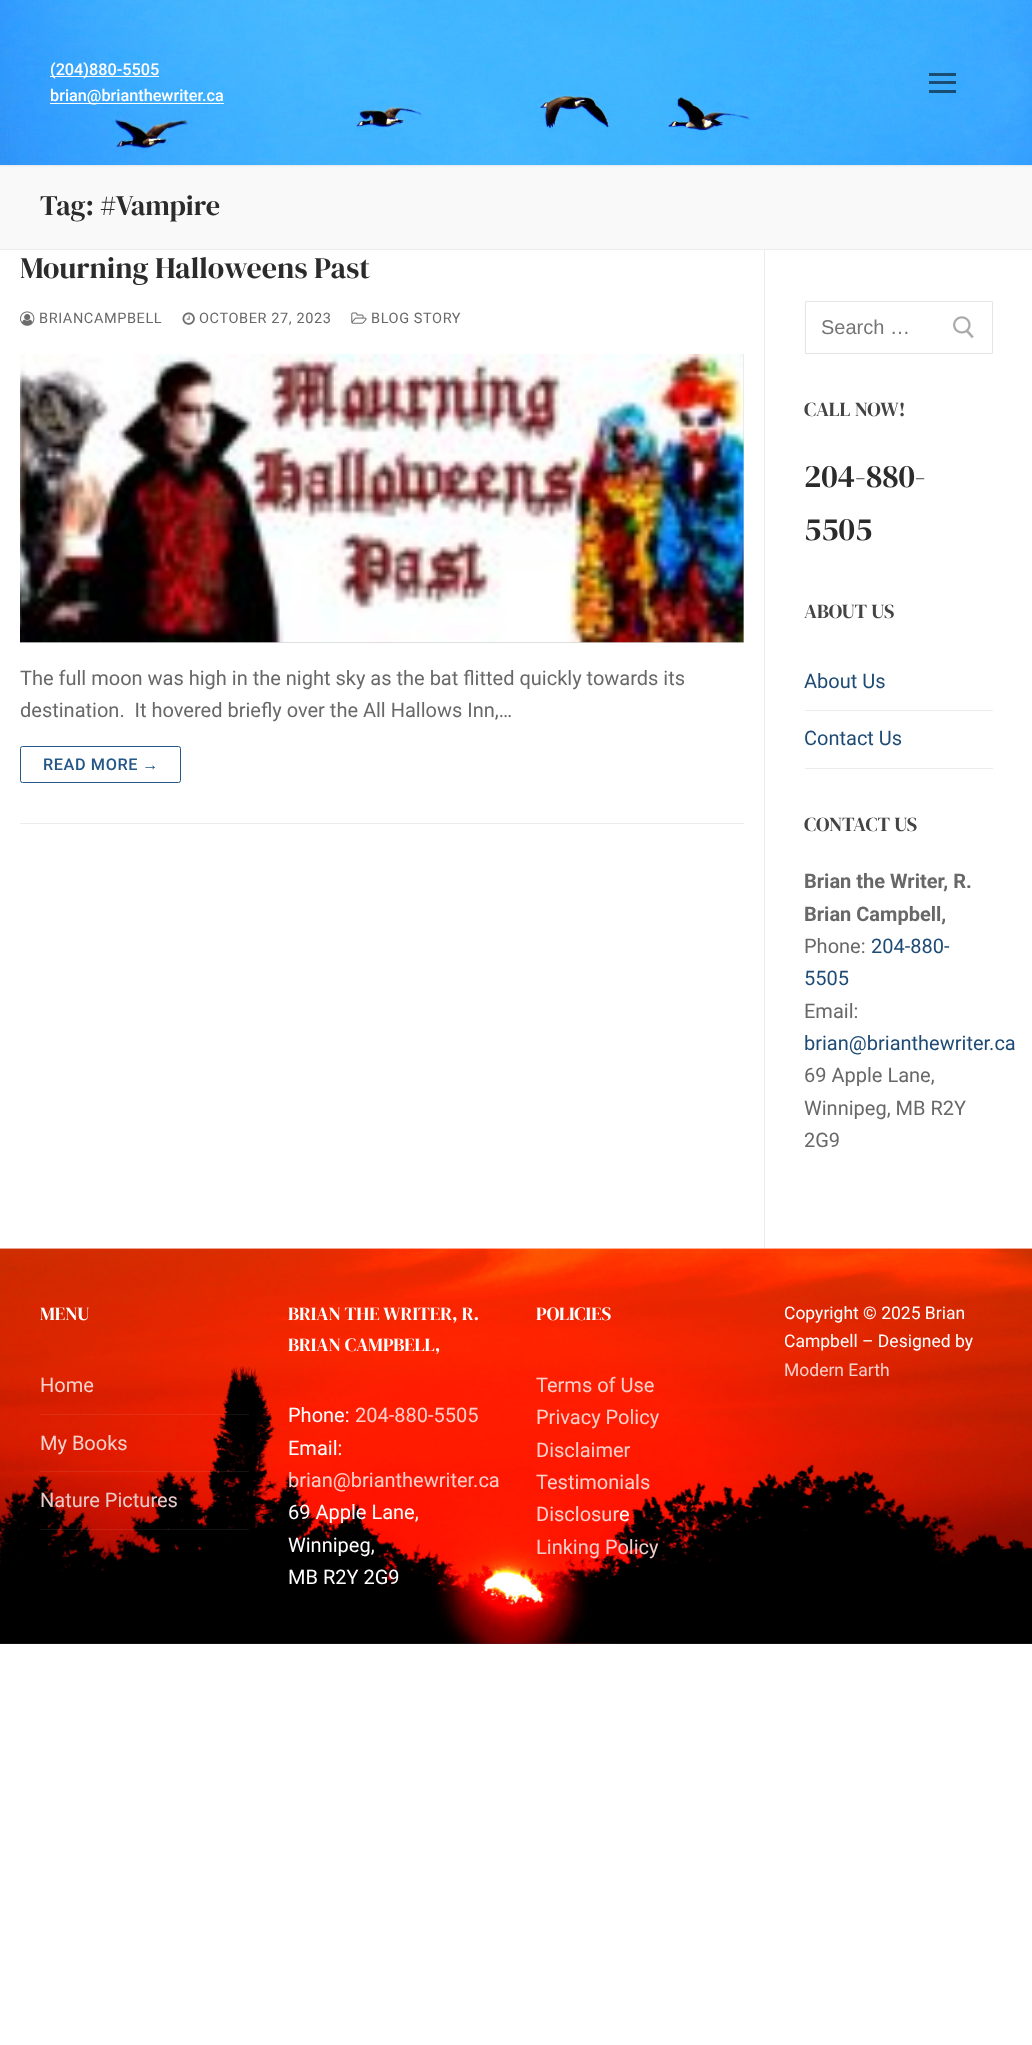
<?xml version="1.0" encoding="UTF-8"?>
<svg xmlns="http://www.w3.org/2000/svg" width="1032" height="2045">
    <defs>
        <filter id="blur1" x="-50%" y="-200%" width="200%" height="500%"><feGaussianBlur stdDeviation="1"/></filter>
    </defs>
    <rect width="100%" height="100%" fill="#FFFFFF"/>
    <rect x="0" y="165" width="1032" height="84" fill="#F9F9F9"/>
    <rect x="0" y="1" width="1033" height="165" fill="#E1E5EA" filter="url(#blur1)"/>
    <image x="0" y="0" width="1032" height="165" href="img_01.png"/>
    <rect x="50" y="76" width="109" height="1" fill="#FFFFFF"/>
    <text x="50" y="75" font-family="Roboto" font-size="16.25" font-weight="500" fill="#FFFFFF">(204)880-5505</text>
    <rect x="50" y="103" width="174" height="1" fill="#FFFFFF"/>
    <text x="50" y="101" font-family="Roboto" font-size="16.25" font-weight="500" fill="#FFFFFF">brian@brianthewriter.ca</text>
    <rect x="929" y="81" width="27" height="3" fill="#000000" fill-opacity="0.55"/>
    <rect x="929" y="73" width="27" height="3" fill="#000000" fill-opacity="0.55"/>
    <rect x="929" y="90" width="27" height="3" fill="#000000" fill-opacity="0.55"/>
    <rect x="0" y="249" width="1032" height="1" fill="#EAECEE"/>
    <text x="40" y="215" font-family="DM Serif Display" font-size="28.25" fill="#2B2B2B">Tag: #Vampire</text>
    <rect x="764" y="250" width="1" height="999" fill="#EAECEE"/>
    <rect x="20" y="823" width="724" height="1" fill="#EAECEE"/>
    <text x="20" y="278" font-family="DM Serif Display" font-size="30" fill="#2B2B2B">Mourning Halloweens Past</text>
    <image x="20" y="311" width="15" height="15" href="img_02.png"/>
    <text x="39" y="323" font-family="Roboto" font-size="14.5" letter-spacing="0.6" fill="#686868">BRIANCAMPBELL</text>
    <image x="182" y="312" width="13" height="13" href="img_03.png"/>
    <text x="199" y="323" font-family="Roboto" font-size="14.5" letter-spacing="0.6" fill="#686868">OCTOBER 27, 2023</text>
    <image x="351" y="312" width="16" height="12" href="img_04.png"/>
    <text x="371" y="323" font-family="Roboto" font-size="14.5" letter-spacing="0.6" fill="#686868">BLOG STORY</text>
    <rect x="20" y="354" width="724" height="289" fill="#D5D5D5"/>
    <image x="20" y="353" width="724" height="290" href="img_05.png"/>
    <text font-family="Roboto" font-size="20" fill="#686868" xml:space="preserve"><tspan x="20" y="685">The full moon was high in the night sky as the bat flitted quickly towards its</tspan><tspan x="20" y="717">destination.  It hovered briefly over the All Hallows Inn,…</tspan></text>
    <rect x="20.5" y="746.5" width="160" height="36" rx="2" fill="none" stroke="#235787"/>
    <text x="43" y="770" font-family="Roboto" font-size="16.25" font-weight="500" letter-spacing="0.6" fill="#235787">READ MORE</text>
    <text x="142" y="770" font-family="Liberation Sans" font-size="16.25" letter-spacing="0.6" fill="#235787">→</text>
    <rect x="805.5" y="301.5" width="187" height="52" rx="0.5" fill="none" stroke="#E5E5E5"/>
    <text x="821" y="334" font-family="Liberation Sans" font-size="20" fill="#757575">Search …</text>
    <image x="953" y="316" width="21" height="23" href="img_06.png"/>
    <text x="804" y="416" font-family="DM Serif Display" font-size="20" fill="#444444">CALL NOW!</text>
    <text font-family="DM Serif Display" font-size="32.5" fill="#2B2B2B">
        <tspan x="804" y="487">204-880-</tspan>
        <tspan x="804" y="540">5505</tspan>
    </text>
    <text x="804" y="618" font-family="DM Serif Display" font-size="20" fill="#444444">ABOUT US</text>
    <rect x="805" y="710" width="188" height="1" fill="#EAECEE"/>
    <text x="804" y="688" font-family="Roboto" font-size="20" fill="#1E4B75">About Us</text>
    <rect x="805" y="768" width="188" height="1" fill="#EAECEE"/>
    <text x="804" y="745" font-family="Roboto" font-size="20" fill="#1E4B75">Contact Us</text>
    <text x="804" y="831" font-family="DM Serif Display" font-size="20" fill="#444444">CONTACT US</text>
    <text font-family="Roboto" font-size="20" font-weight="700" fill="#686868">
        <tspan x="804" y="888">Brian the Writer, R.</tspan>
        <tspan x="804" y="921">Brian Campbell,</tspan>
    </text>
    <text x="804" y="953" font-family="Roboto" font-size="20" fill="#686868">Phone:</text>
    <text x="871" y="953" font-family="Roboto" font-size="20" fill="#1E4B75">204-880-</text>
    <text x="804" y="985" font-family="Roboto" font-size="20" fill="#1E4B75">5505</text>
    <text x="804" y="1018" font-family="Roboto" font-size="20" fill="#686868">Email:</text>
    <text x="804" y="1050" font-family="Roboto" font-size="20" fill="#1E4B75">brian@brianthewriter.ca</text>
    <text font-family="Roboto" font-size="20" fill="#686868">
        <tspan x="804" y="1082">69 Apple Lane,</tspan>
        <tspan x="804" y="1115">Winnipeg, MB R2Y</tspan>
        <tspan x="804" y="1147">2G9</tspan>
    </text>
    <image x="0" y="1248" width="1032" height="396" href="img_07.png"/>
    <image x="0" y="1248" width="1032" height="396" href="img_08.png"/>
    <text x="40" y="1320" font-family="DM Serif Display" font-size="18.75" fill="#FFFFFF">MENU</text>
    <rect x="40" y="1414" width="209" height="1" fill="#FFFFFF" fill-opacity="0.08"/>
    <text x="40" y="1392" font-family="Roboto" font-size="20" fill="#F8D1CA">Home</text>
    <rect x="40" y="1471" width="209" height="1" fill="#FFFFFF" fill-opacity="0.08"/>
    <text x="40" y="1450" font-family="Roboto" font-size="20" fill="#F8D1CA">My Books</text>
    <rect x="40" y="1529" width="209" height="1" fill="#FFFFFF" fill-opacity="0.08"/>
    <text x="40" y="1507" font-family="Roboto" font-size="20" fill="#E9CCCA">Nature Pictures</text>
    <text font-family="DM Serif Display" font-size="18.75" fill="#FFFFFF">
        <tspan x="288" y="1320">BRIAN THE WRITER, R.</tspan>
        <tspan x="288" y="1351">BRIAN CAMPBELL,</tspan>
    </text>
    <text x="288" y="1422" font-family="Roboto" font-size="20" fill="#FFFFFF">Phone:</text>
    <text x="355" y="1422" font-family="Roboto" font-size="20" fill="#FFCFCA">204-880-5505</text>
    <text x="288" y="1455" font-family="Roboto" font-size="20" fill="#FFFFFF">Email:</text>
    <text x="288" y="1487" font-family="Roboto" font-size="20" fill="#FFCFCA">brian@brianthewriter.ca</text>
    <text font-family="Roboto" font-size="20" fill="#FFFFFF">
        <tspan x="288" y="1519">69 Apple Lane,</tspan>
        <tspan x="288" y="1552">Winnipeg,</tspan>
        <tspan x="288" y="1584">MB R2Y 2G9</tspan>
    </text>
    <text x="536" y="1320" font-family="DM Serif Display" font-size="18.75" fill="#FFFFFF">POLICIES</text>
    <text font-family="Roboto" font-size="20" fill="#FFCFCA">
        <tspan x="536" y="1392">Terms of Use</tspan>
        <tspan x="536" y="1424">Privacy Policy</tspan>
        <tspan x="536" y="1457">Disclaimer</tspan>
        <tspan x="536" y="1489">Testimonials</tspan>
        <tspan x="536" y="1521">Disclosur</tspan>
    </text>
    <text x="619" y="1521" font-family="Roboto" font-size="20" fill="#FFFFFF">e</text>
    <text x="536" y="1554" font-family="Roboto" font-size="20" fill="#F1CCCA">Linking Policy</text>
    <text font-family="Roboto" font-size="17.5" fill="#FFFFFF">
        <tspan x="784" y="1319">Copyright © 2025 Brian</tspan>
        <tspan x="784" y="1347">Campbell – Designed by</tspan>
    </text>
    <text x="784" y="1376" font-family="Roboto" font-size="17.5" fill="#F8D1CA">Modern Earth</text>
</svg>
